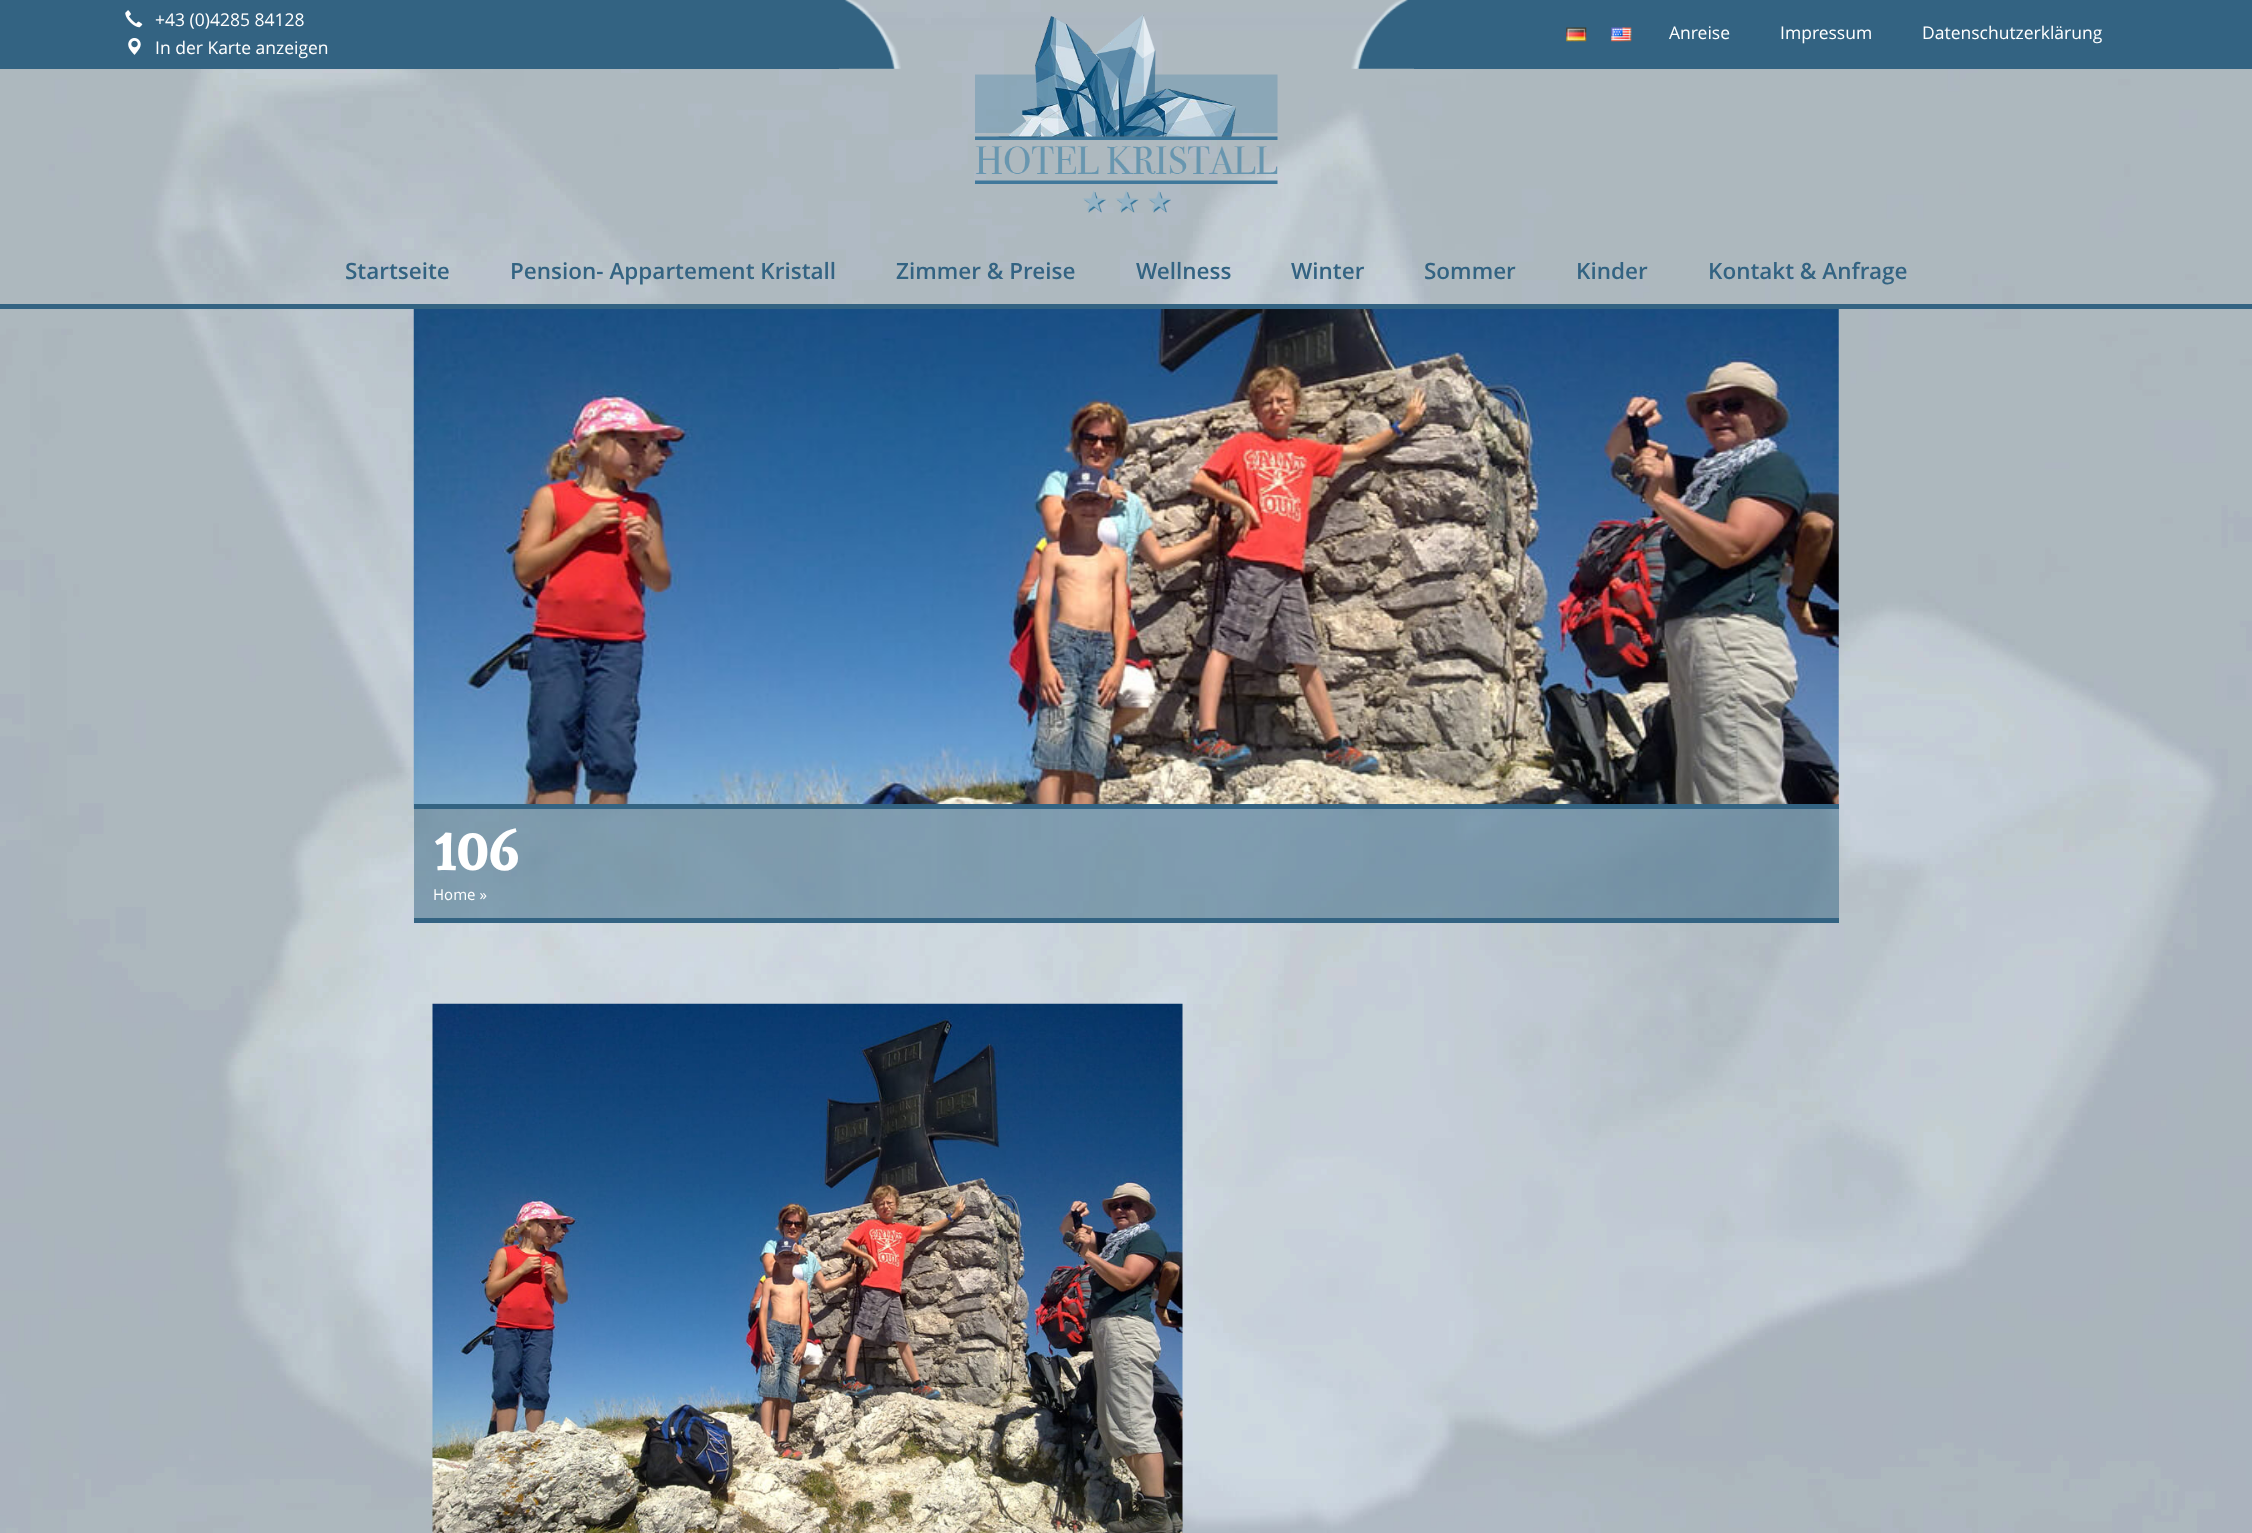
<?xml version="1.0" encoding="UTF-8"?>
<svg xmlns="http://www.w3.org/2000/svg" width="2252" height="1533">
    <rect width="100%" height="100%" fill="#FFFFFF"/>
    <image x="0" y="0" width="2252" height="1533" href="img_01.png"/>
    <rect x="0" y="304" width="2252" height="5" fill="#336382"/>
    <rect x="0" y="0" width="839" height="69" fill="#336382"/>
    <image x="125" y="10" width="18" height="18" href="img_02.png"/>
    <text x="155" y="26" font-family="Open Sans" font-size="17.5" fill="#FFFFFF">+43 (0)4285 84128</text>
    <image x="839" y="0" width="62" height="69" href="img_03.png"/>
    <image x="128" y="38" width="13" height="17" href="img_04.png"/>
    <text x="155" y="54" font-family="Open Sans" font-size="17.5" fill="#FFFFFF">In der Karte anzeigen</text>
    <image x="975" y="14" width="303" height="199" href="img_05.png"/>
    <rect x="1414" y="0" width="838" height="69" fill="#336382"/>
    <image x="1351" y="0" width="63" height="69" href="img_06.png"/>
    <image x="1566" y="27" width="21" height="15" href="img_07.png"/>
    <image x="1611" y="27" width="21" height="15" href="img_08.png"/>
    <text x="1669" y="39" font-family="Open Sans" font-size="17.5" fill="#FFFFFF">Anreise</text>
    <text x="1780" y="39" font-family="Open Sans" font-size="17.5" fill="#FFFFFF">Impressum</text>
    <text x="1922" y="39" font-family="Open Sans" font-size="17.5" fill="#FFFFFF">Datenschutzerklärung</text>
    <text x="345" y="279" font-family="Open Sans" font-size="22.5" font-weight="600" fill="#336382">Startseite</text>
    <text x="510" y="279" font-family="Open Sans" font-size="22.5" font-weight="600" fill="#336382">Pension- Appartement Kristall</text>
    <text x="896" y="279" font-family="Open Sans" font-size="22.5" font-weight="600" fill="#336382">Zimmer &amp; Preise</text>
    <text x="1136" y="279" font-family="Open Sans" font-size="22.5" font-weight="600" fill="#336382">Wellness</text>
    <text x="1291" y="279" font-family="Open Sans" font-size="22.5" font-weight="600" fill="#336382">Winter</text>
    <text x="1424" y="279" font-family="Open Sans" font-size="22.5" font-weight="600" fill="#336382">Sommer</text>
    <text x="1576" y="279" font-family="Open Sans" font-size="22.5" font-weight="600" fill="#336382">Kinder</text>
    <text x="1708" y="279" font-family="Open Sans" font-size="22.5" font-weight="600" fill="#336382">Kontakt &amp; Anfrage</text>
    <image x="413" y="309" width="1426" height="500" href="img_09.png"/>
    <rect x="414" y="804" width="1425" height="5" fill="#336382"/>
    <rect x="414" y="809" width="1425" height="109" fill="#336382" fill-opacity="0.5"/>
    <rect x="414" y="918" width="1425" height="5" fill="#336382"/>
    <text x="433" y="870" font-family="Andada" font-size="56" font-weight="700" fill="#FFFFFF">106</text>
    <text x="433" y="900" font-family="Open Sans" font-size="15" fill="#FFFFFF">Home »</text>
    <image x="432" y="1003" width="751" height="530" href="img_10.png"/>
</svg>
